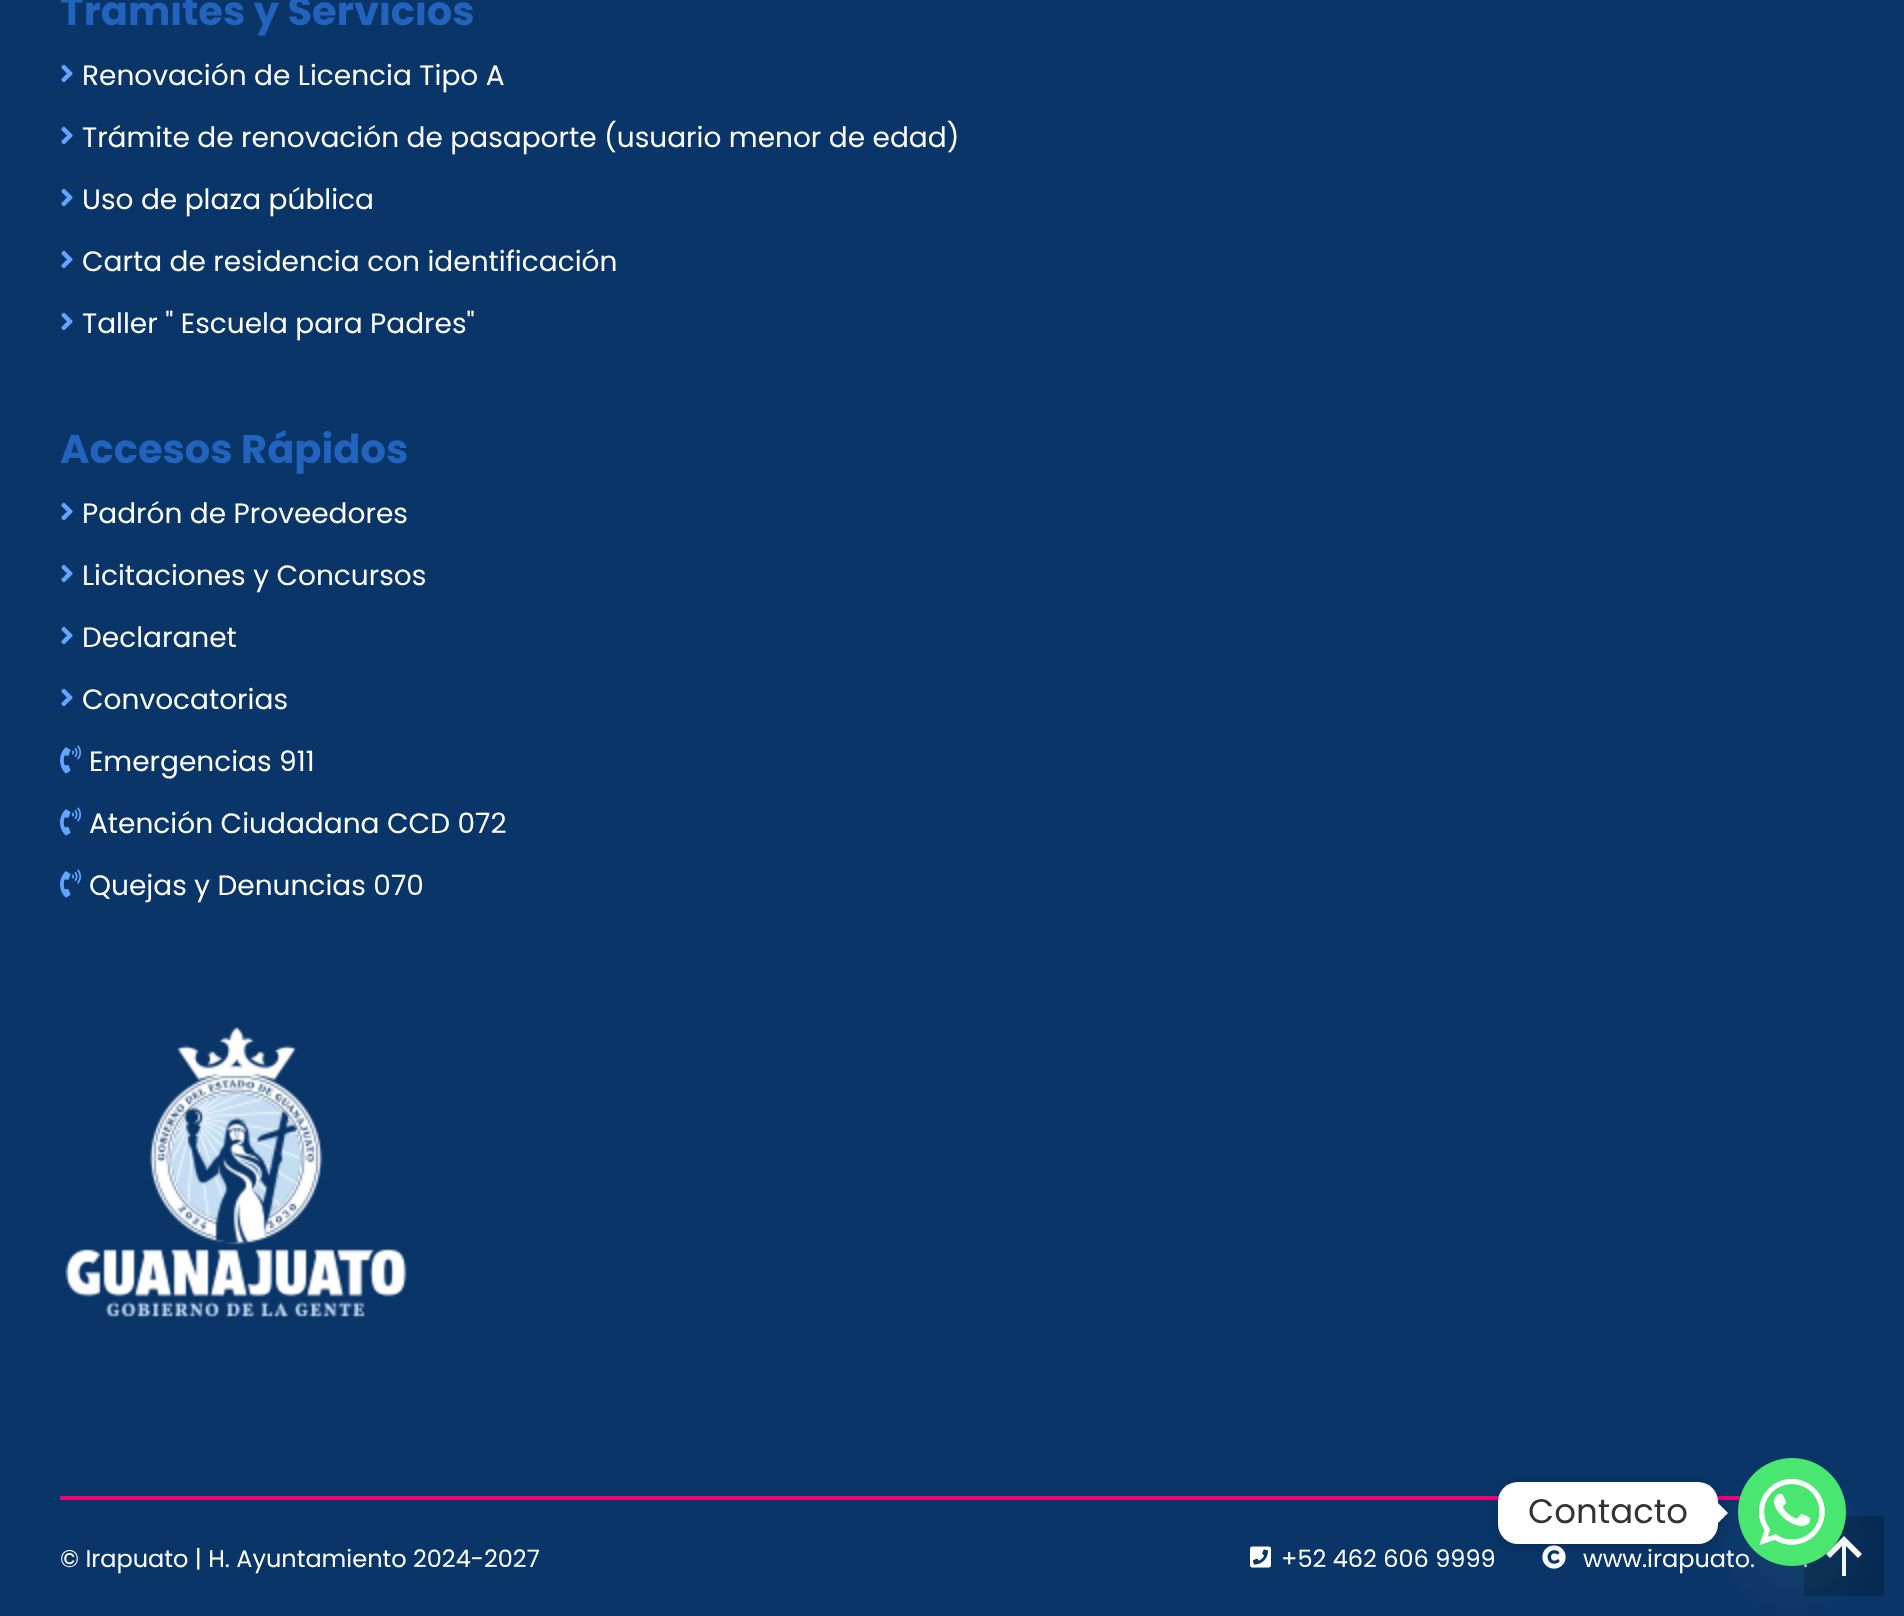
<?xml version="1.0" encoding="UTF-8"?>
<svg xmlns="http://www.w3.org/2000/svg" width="1904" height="1616">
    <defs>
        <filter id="blur1" x="-50%" y="-200%" width="200%" height="500%"><feGaussianBlur stdDeviation="24"/></filter>
        <filter id="blur2" x="-50%" y="-200%" width="200%" height="500%"><feGaussianBlur stdDeviation="7.5"/></filter>
    </defs>
    <rect width="100%" height="100%" fill="#093568"/>
    <text x="60" y="25" font-family="Poppins" font-size="40" font-weight="700" fill="#2263BD">Tramites y Servicios</text>
    <image x="61" y="64" width="12" height="19" href="img_01.png"/>
    <text x="82" y="85" font-family="Poppins" font-size="28" fill="#FFFFFF">Renovación de Licencia Tipo A</text>
    <image x="61" y="126" width="12" height="19" href="img_01.png"/>
    <text x="82" y="147" font-family="Poppins" font-size="28" fill="#FFFFFF">Trámite de renovación de pasaporte (usuario menor de edad)</text>
    <image x="61" y="188" width="12" height="19" href="img_01.png"/>
    <text x="82" y="209" font-family="Poppins" font-size="28" fill="#FFFFFF">Uso de plaza pública</text>
    <image x="61" y="250" width="12" height="19" href="img_01.png"/>
    <text x="82" y="271" font-family="Poppins" font-size="28" fill="#FFFFFF">Carta de residencia con identificación</text>
    <image x="61" y="312" width="12" height="19" href="img_01.png"/>
    <text x="82" y="333" font-family="Poppins" font-size="28" fill="#FFFFFF">Taller " Escuela para Padres"</text>
    <text x="60" y="463" font-family="Poppins" font-size="40" font-weight="700" fill="#2263BD">Accesos Rápidos</text>
    <image x="61" y="502" width="12" height="19" href="img_01.png"/>
    <text x="82" y="523" font-family="Poppins" font-size="28" fill="#FFFFFF">Padrón de Proveedores</text>
    <image x="61" y="564" width="12" height="19" href="img_01.png"/>
    <text x="82" y="585" font-family="Poppins" font-size="28" fill="#FFFFFF">Licitaciones y Concursos</text>
    <image x="61" y="626" width="12" height="19" href="img_01.png"/>
    <text x="82" y="647" font-family="Poppins" font-size="28" fill="#FFFFFF">Declaranet</text>
    <image x="61" y="688" width="12" height="19" href="img_01.png"/>
    <text x="82" y="709" font-family="Poppins" font-size="28" fill="#FFFFFF">Convocatorias</text>
    <image x="60" y="745" width="22" height="29" href="img_02.png"/>
    <text x="89" y="771" font-family="Poppins" font-size="28" fill="#FFFFFF">Emergencias 911</text>
    <image x="60" y="807" width="22" height="29" href="img_02.png"/>
    <text x="89" y="833" font-family="Poppins" font-size="28" fill="#FFFFFF">Atención Ciudadana CCD 072</text>
    <image x="60" y="869" width="22" height="29" href="img_02.png"/>
    <text x="89" y="895" font-family="Poppins" font-size="28" fill="#FFFFFF">Quejas y Denuncias 070</text>
    <image x="65" y="1027" width="342" height="291" href="img_03.png"/>
    <rect x="60" y="1496" width="1784" height="4" fill="#F60077"/>
    <text x="60" y="1567" font-family="Poppins" font-size="24" fill="#FFFFFF">© Irapuato | H. Ayuntamiento 2024-2027</text>
    <image x="1250" y="1546" width="21" height="22" href="img_04.png"/>
    <text x="1281" y="1567" font-family="Poppins" font-size="24" fill="#FFFFFF">+52 462 606 9999</text>
    <image x="1542" y="1545" width="24" height="24" href="img_05.png"/>
    <text x="1583" y="1567" font-family="Poppins" font-size="24" fill="#FFFFFF">www.irapuato.</text>
    <text x="1803" y="1567" font-family="Poppins" font-size="24" fill="#FFFFFF">.</text>
    <rect x="1804" y="1516" width="80" height="80" fill="#000000" fill-opacity="0.2"/>
    <path d="M 1826 1554 L 1830 1558 L 1842 1546 V 1576 H 1846 V 1546 L 1858 1558 L 1862 1554 L 1844 1536 Z" fill="#FFFFFF"/>
    <rect x="1738" y="1490" width="108" height="108" rx="54" fill="#49687E" fill-opacity="0.16" filter="url(#blur1)"/>
    <image x="1738" y="1458" width="108" height="108" href="img_06.png"/>
    <rect x="1498" y="1484" width="220" height="62" rx="20" fill="#000000" fill-opacity="0.15" filter="url(#blur2)"/>
    <rect x="1498" y="1482" width="220" height="62" rx="20" fill="#FFFFFF"/>
    <text x="1528" y="1523" font-family="Poppins" font-size="34" fill="#333333">Contacto</text>
    <path d="M 1718 1523 V 1503 L 1728 1513 Z" fill="#FFFFFF"/>
</svg>
